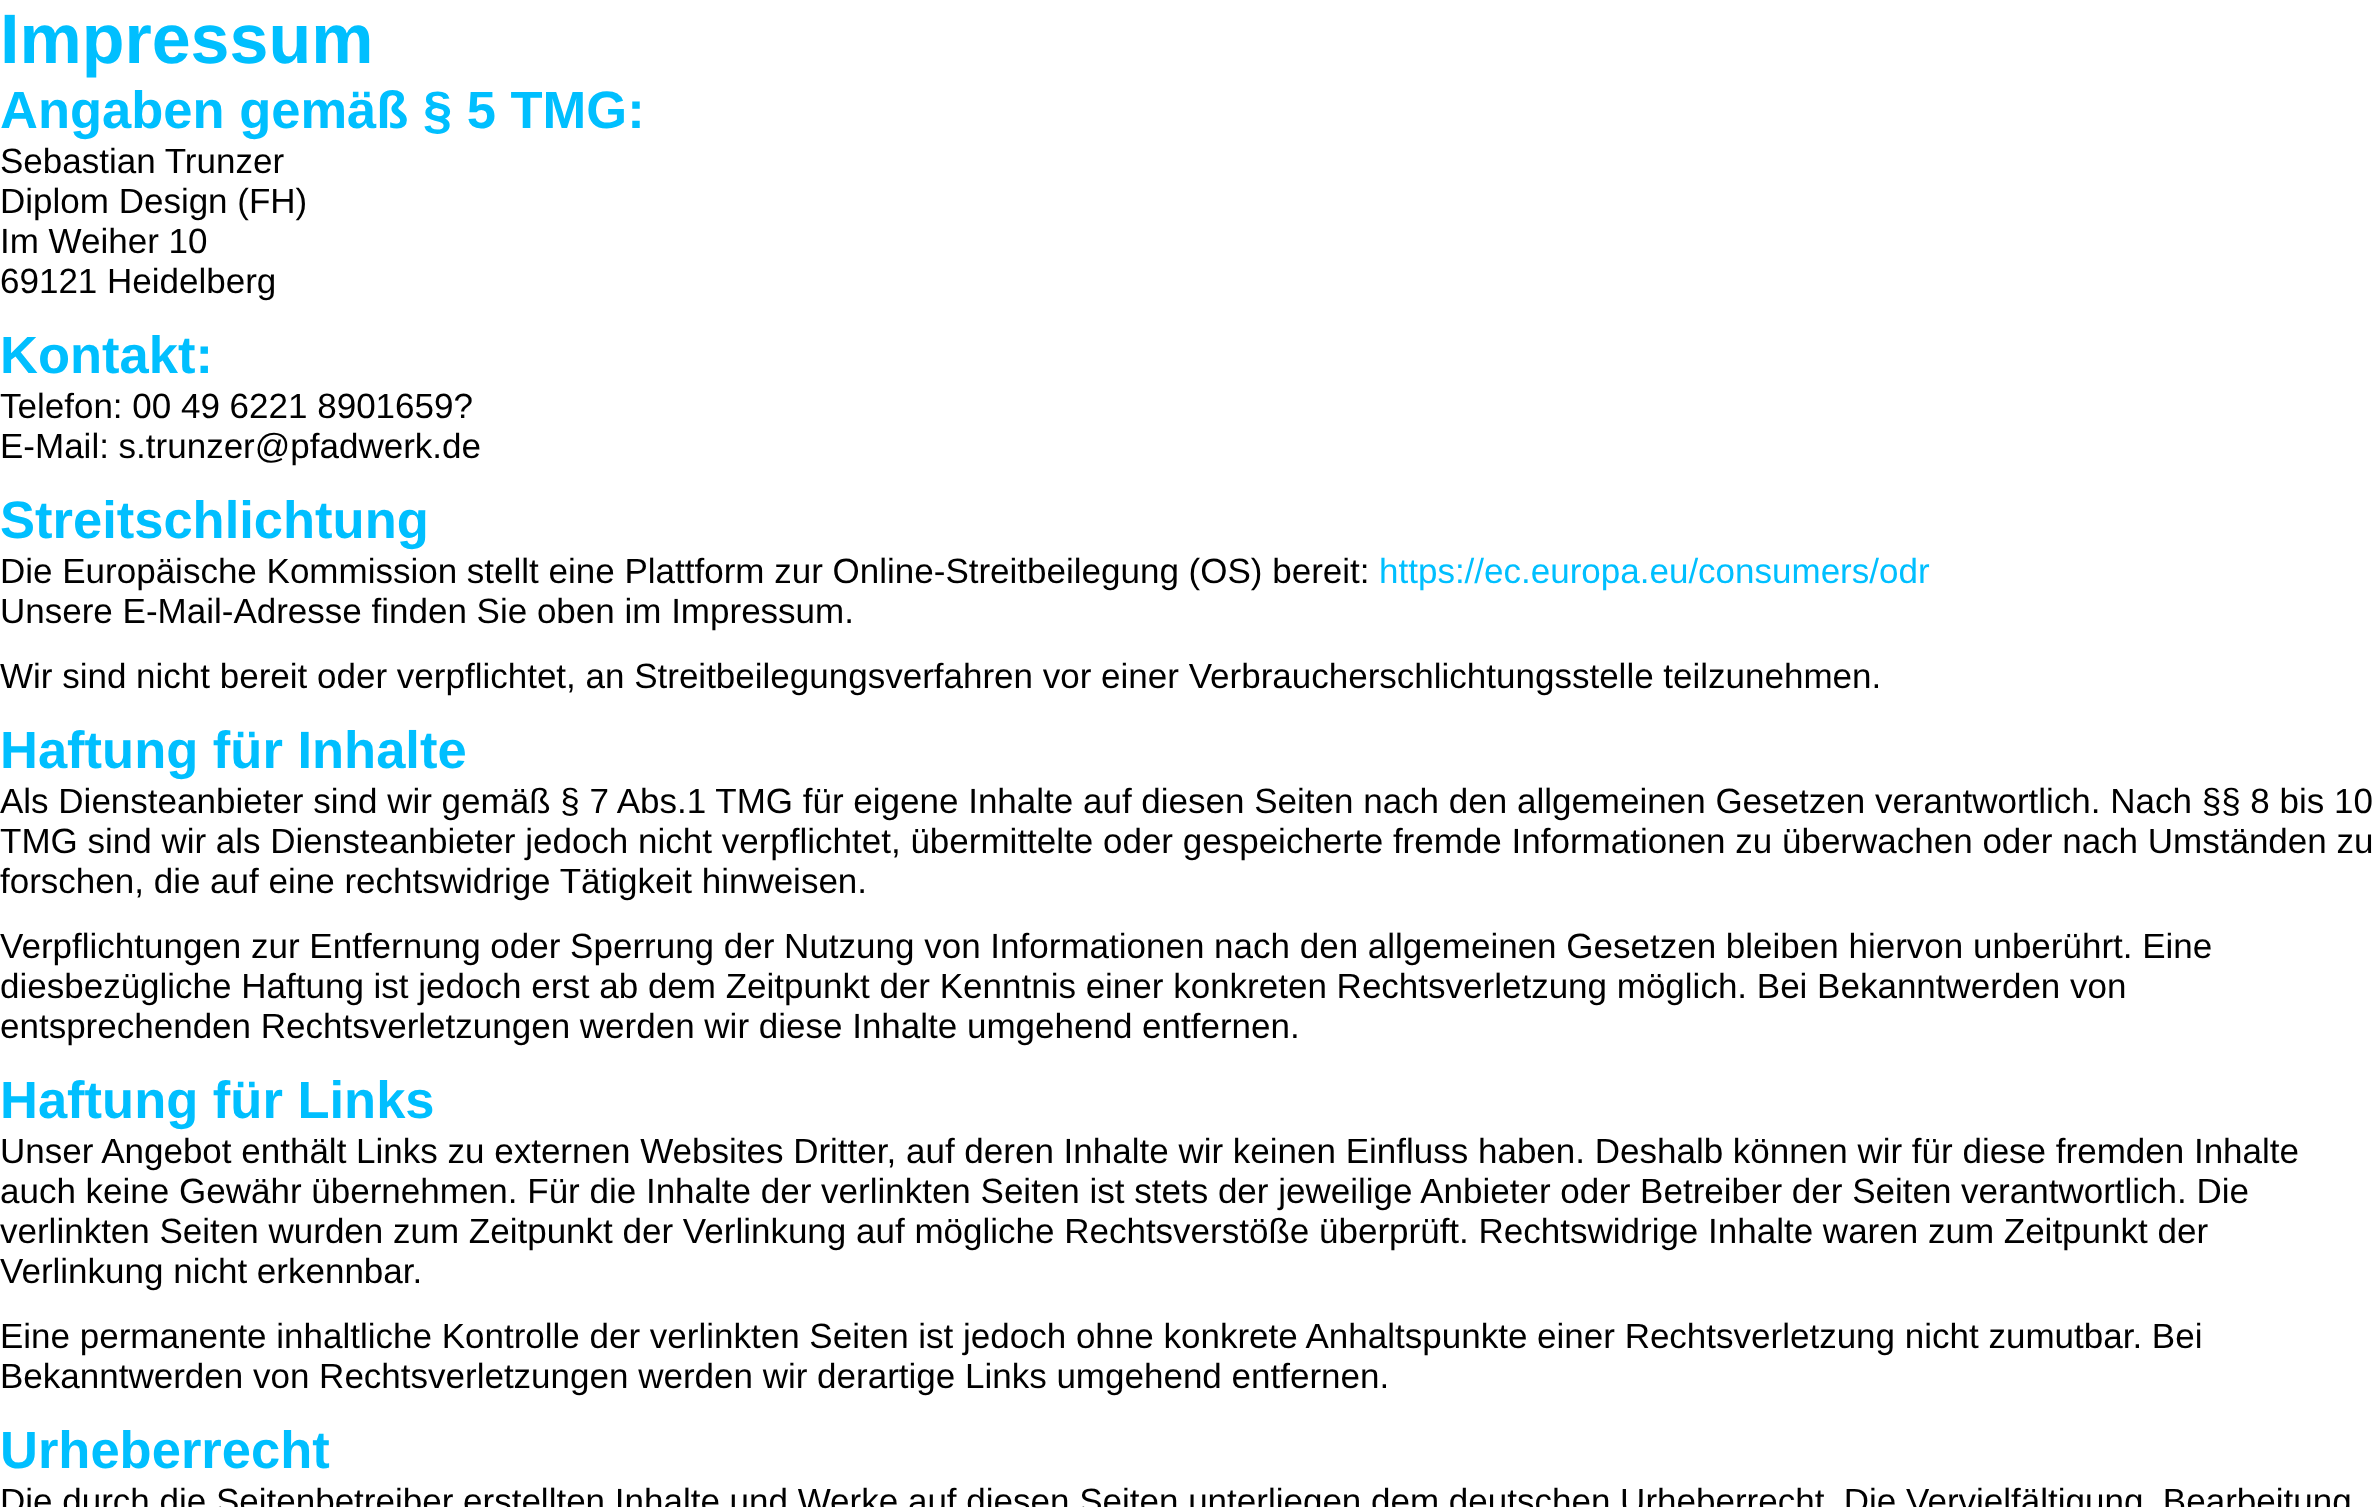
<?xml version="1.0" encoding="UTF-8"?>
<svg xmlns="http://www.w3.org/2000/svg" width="2377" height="1507">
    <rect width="100%" height="100%" fill="#FFFFFF"/>
    <text x="0" y="63" font-family="Liberation Sans" font-size="70" font-weight="700" fill="#00BFFF">Impressum</text>
    <text x="0" y="128" font-family="Liberation Sans" font-size="52.5" font-weight="700" fill="#00BFFF">Angaben gemäß § 5 TMG:</text>
    <text font-family="Liberation Sans" font-size="35" fill="#000000">
        <tspan x="0" y="173">Sebastian Trunzer</tspan>
        <tspan x="0" y="213">Diplom Design (FH)</tspan>
        <tspan x="0" y="253">Im Weiher 10</tspan>
        <tspan x="0" y="293">69121 Heidelberg</tspan>
    </text>
    <text x="0" y="373" font-family="Liberation Sans" font-size="52.5" font-weight="700" fill="#00BFFF">Kontakt:</text>
    <text font-family="Liberation Sans" font-size="35" fill="#000000">
        <tspan x="0" y="418">Telefon: 00 49 6221 8901659?</tspan>
        <tspan x="0" y="458">E-Mail: s.trunzer@pfadwerk.de</tspan>
    </text>
    <text x="0" y="538" font-family="Liberation Sans" font-size="52.5" font-weight="700" fill="#00BFFF">Streitschlichtung</text>
    <text x="0" y="583" font-family="Liberation Sans" font-size="35" fill="#000000">Die Europäische Kommission stellt eine Plattform zur Online-Streitbeilegung (OS) bereit:</text>
    <text x="1379" y="583" font-family="Liberation Sans" font-size="35" fill="#00BFFF">https://ec.europa.eu/consumers/odr</text>
    <text font-family="Liberation Sans" font-size="35" fill="#000000">
        <tspan x="0" y="623">Unsere E-Mail-Adresse finden Sie oben im Impressum.</tspan>
        <tspan x="0" y="688">Wir sind nicht bereit oder verpflichtet, an Streitbeilegungsverfahren vor einer Verbraucherschlichtungsstelle teilzunehmen.</tspan>
    </text>
    <text x="0" y="768" font-family="Liberation Sans" font-size="52.5" font-weight="700" fill="#00BFFF">Haftung für Inhalte</text>
    <text font-family="Liberation Sans" font-size="35" fill="#000000">
        <tspan x="0" y="813">Als Diensteanbieter sind wir gemäß § 7 Abs.1 TMG für eigene Inhalte auf diesen Seiten nach den allgemeinen Gesetzen verantwortlich. Nach §§ 8 bis 10</tspan>
        <tspan x="0" y="853">TMG sind wir als Diensteanbieter jedoch nicht verpflichtet, übermittelte oder gespeicherte fremde Informationen zu überwachen oder nach Umständen zu</tspan>
        <tspan x="0" y="893">forschen, die auf eine rechtswidrige Tätigkeit hinweisen.</tspan>
        <tspan x="0" y="958">Verpflichtungen zur Entfernung oder Sperrung der Nutzung von Informationen nach den allgemeinen Gesetzen bleiben hiervon unberührt. Eine</tspan>
        <tspan x="0" y="998">diesbezügliche Haftung ist jedoch erst ab dem Zeitpunkt der Kenntnis einer konkreten Rechtsverletzung möglich. Bei Bekanntwerden von</tspan>
        <tspan x="0" y="1038">entsprechenden Rechtsverletzungen werden wir diese Inhalte umgehend entfernen.</tspan>
    </text>
    <text x="0" y="1118" font-family="Liberation Sans" font-size="52.5" font-weight="700" fill="#00BFFF">Haftung für Links</text>
    <text font-family="Liberation Sans" font-size="35" fill="#000000">
        <tspan x="0" y="1163">Unser Angebot enthält Links zu externen Websites Dritter, auf deren Inhalte wir keinen Einfluss haben. Deshalb können wir für diese fremden Inhalte</tspan>
        <tspan x="0" y="1203">auch keine Gewähr übernehmen. Für die Inhalte der verlinkten Seiten ist stets der jeweilige Anbieter oder Betreiber der Seiten verantwortlich. Die</tspan>
        <tspan x="0" y="1243">verlinkten Seiten wurden zum Zeitpunkt der Verlinkung auf mögliche Rechtsverstöße überprüft. Rechtswidrige Inhalte waren zum Zeitpunkt der</tspan>
        <tspan x="0" y="1283">Verlinkung nicht erkennbar.</tspan>
        <tspan x="0" y="1348">Eine permanente inhaltliche Kontrolle der verlinkten Seiten ist jedoch ohne konkrete Anhaltspunkte einer Rechtsverletzung nicht zumutbar. Bei</tspan>
        <tspan x="0" y="1388">Bekanntwerden von Rechtsverletzungen werden wir derartige Links umgehend entfernen.</tspan>
    </text>
    <text x="0" y="1468" font-family="Liberation Sans" font-size="52.5" font-weight="700" fill="#00BFFF">Urheberrecht</text>
    <text x="0" y="1513" font-family="Liberation Sans" font-size="35" fill="#000000">Die durch die Seitenbetreiber erstellten Inhalte und Werke auf diesen Seiten unterliegen dem deutschen Urheberrecht. Die Vervielfältigung, Bearbeitung</text>
</svg>
